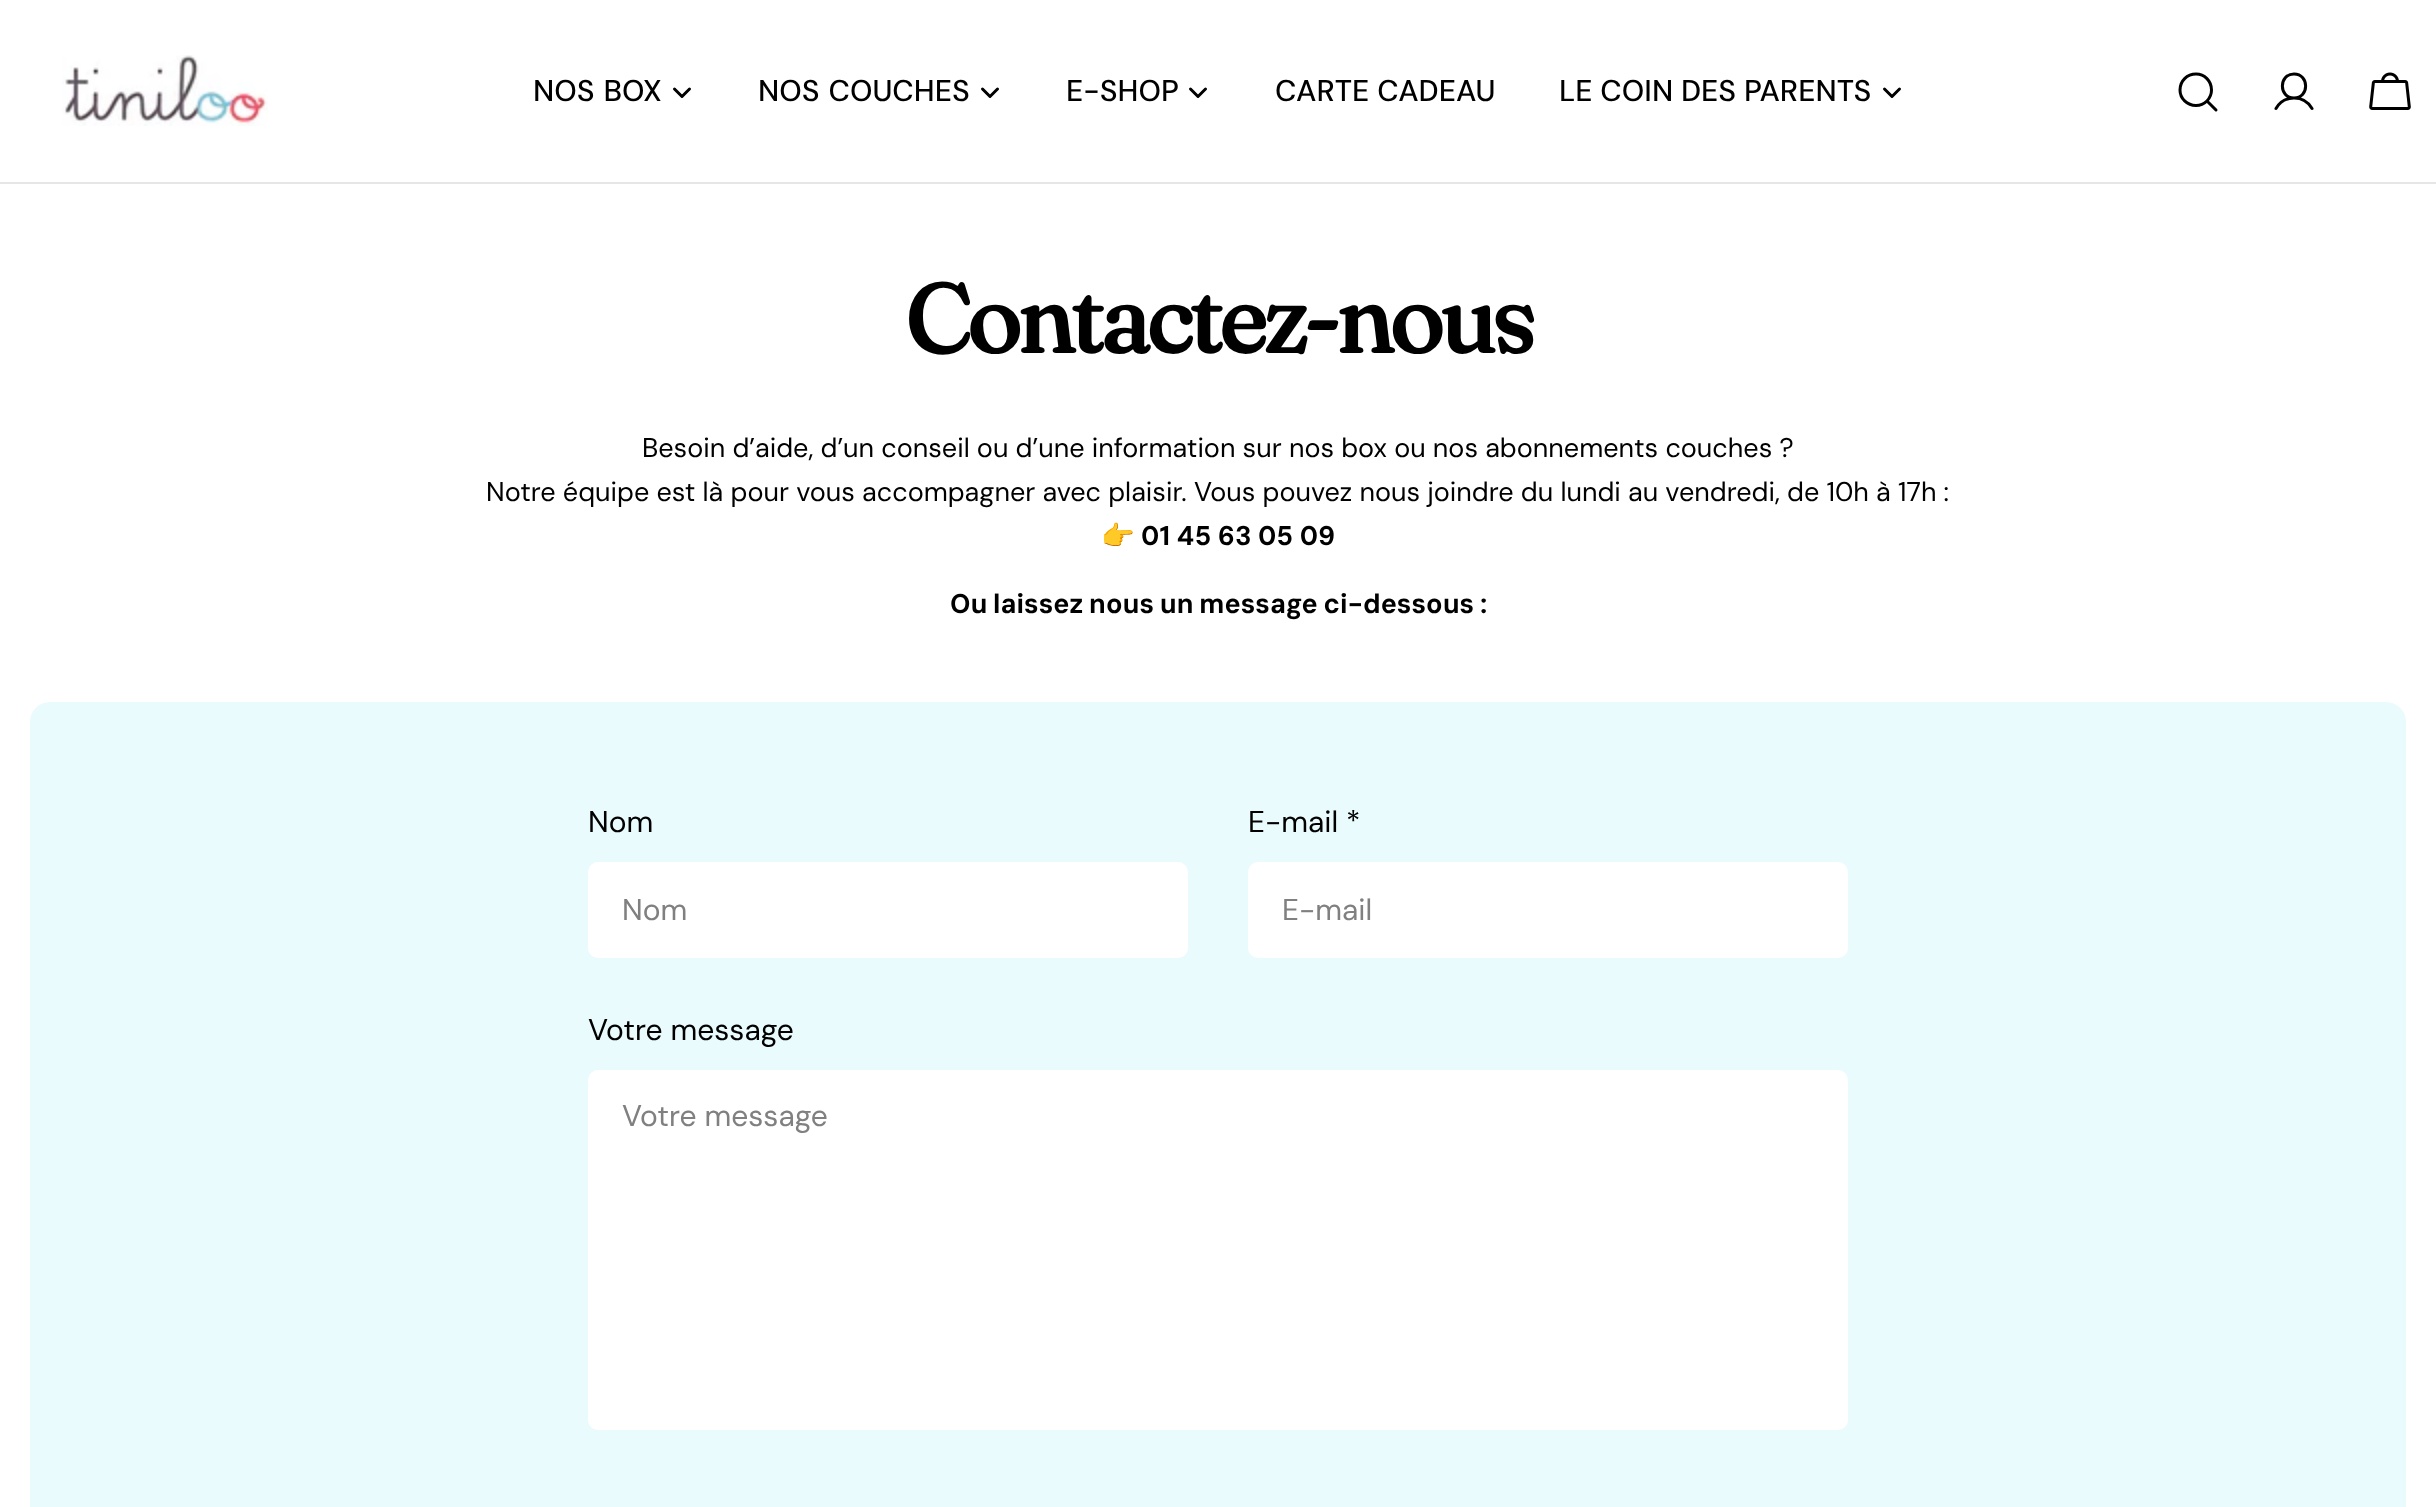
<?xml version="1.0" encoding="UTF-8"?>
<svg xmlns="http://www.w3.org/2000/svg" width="2436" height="1507">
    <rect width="100%" height="100%" fill="#FFFFFF"/>
    <rect x="0" y="182" width="2436" height="2" fill="#E6E6E6"/>
    <image x="62" y="55" width="206" height="71" href="img_01.png"/>
    <text x="533" y="101" word-spacing="1" font-family="DM Sans" font-size="30" font-weight="500" fill="#000000">NOS BOX</text>
    <path d="M 689.5 89 L 682 96.5 L 674.5 89" fill="none" stroke="#000000" stroke-width="3" stroke-linecap="round" stroke-linejoin="round"/>
    <text x="758" y="101" word-spacing="1" font-family="DM Sans" font-size="30" font-weight="500" fill="#000000">NOS COUCHES</text>
    <path d="M 997.5 89 L 990 96.5 L 982.5 89" fill="none" stroke="#000000" stroke-width="3" stroke-linecap="round" stroke-linejoin="round"/>
    <text x="1066" y="101" font-family="DM Sans" font-size="30" font-weight="500" fill="#000000">E-SHOP</text>
    <path d="M 1205.5 89 L 1198 96.5 L 1190.5 89" fill="none" stroke="#000000" stroke-width="3" stroke-linecap="round" stroke-linejoin="round"/>
    <text x="1275" y="101" font-family="DM Sans" font-size="30" font-weight="500" fill="#000000">CARTE CADEAU</text>
    <text x="1559" y="101" font-family="DM Sans" font-size="30" font-weight="500" fill="#000000">LE COIN DES PARENTS</text>
    <path d="M 1899.5 89 L 1892 96.5 L 1884.5 89" fill="none" stroke="#000000" stroke-width="3" stroke-linecap="round" stroke-linejoin="round"/>
    <path d="M 2196 105.5 C 2204.5 105.5 2211.5 98.5 2211.5 90 C 2211.5 81 2204.5 74 2196 74 C 2187 74 2180 81 2180 90 C 2180 98.5 2187 105.5 2196 105.5 Z M 2207 101 L 2216 110" fill="none" stroke="#000000" stroke-width="3" stroke-linecap="round" stroke-linejoin="round"/>
    <path d="M 2294 98 C 2309.5 98 2309.5 74 2294 74 C 2278.5 74 2278.5 98 2294 98 Z M 2276 108.5 C 2284 94.5 2304 94.5 2312 108.5" fill="none" stroke="#000000" stroke-width="3" stroke-linecap="round" stroke-linejoin="round"/>
    <image x="2369" y="72" width="42" height="38" href="img_02.png"/>
    <text x="905" y="353" font-family="Fraunces" font-size="96" font-weight="700" letter-spacing="-3.8" fill="#000000">Contactez-nous</text>
    <text x="642" y="457" font-family="DM Sans" font-size="27" fill="#000000">Besoin d’aide, d’un conseil ou d’une information sur nos box ou nos abonnements couches ?</text>
    <text x="486" y="501" font-family="DM Sans" font-size="27" fill="#000000">Notre équipe est là pour vous accompagner avec plaisir. Vous pouvez nous joindre du lundi au vendredi, de 10h à 17h :</text>
    <text x="1101" y="545" font-family="Noto Color Emoji" font-size="27" fill="#000000">👉</text>
    <text x="1141" y="545" font-family="DM Sans" font-size="27" font-weight="700" fill="#000000">01 45 63 05 09</text>
    <text x="950" y="613" word-spacing="-0.75" font-family="DM Sans" font-size="27" font-weight="700" fill="#000000">Ou laissez nous un message ci-dessous :</text>
    <rect x="30" y="702" width="2376" height="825" rx="20" fill="#EAFBFE"/>
    <text x="588" y="832" font-family="'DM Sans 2'" font-size="30" fill="#000000">Nom</text>
    <rect x="589" y="863" width="598" height="94" rx="9" fill="#FFFFFF" stroke="#FFFFFF" stroke-width="2"/>
    <text x="622" y="920" font-family="'DM Sans 2'" font-size="30" fill="#808080">Nom</text>
    <text x="1248" y="832" font-family="'DM Sans 2'" font-size="30" fill="#000000">E-mail *</text>
    <rect x="1249" y="863" width="598" height="94" rx="9" fill="#FFFFFF" stroke="#FFFFFF" stroke-width="2"/>
    <text x="1282" y="920" font-family="'DM Sans 2'" font-size="30" fill="#808080">E-mail</text>
    <text x="588" y="1040" font-family="'DM Sans 2'" font-size="30" fill="#000000">Votre message</text>
    <rect x="589" y="1071" width="1258" height="358" rx="9" fill="#FFFFFF" stroke="#FFFFFF" stroke-width="2"/>
    <text x="622" y="1126" font-family="'DM Sans 2'" font-size="30" fill="#808080">Votre message</text>
</svg>
